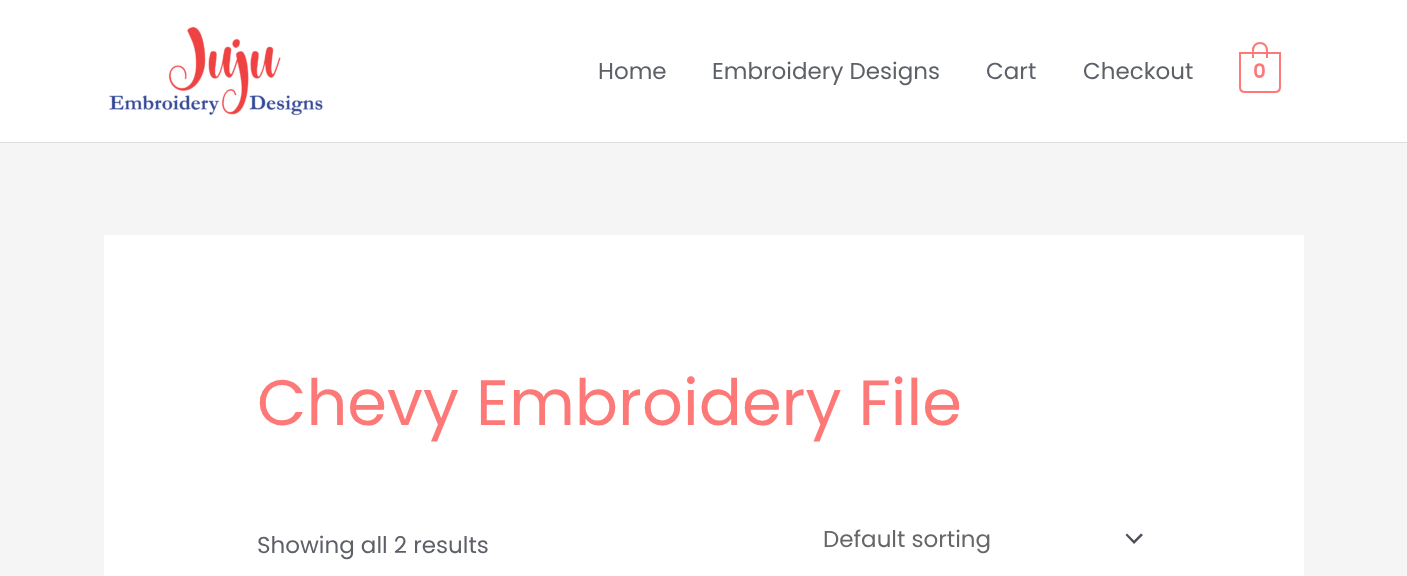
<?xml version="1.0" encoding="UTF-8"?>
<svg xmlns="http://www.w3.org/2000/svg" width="1407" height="576">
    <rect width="100%" height="100%" fill="#F5F5F5"/>
    <rect x="0" y="0" width="1407" height="142" fill="#FFFFFF"/>
    <rect x="0" y="142" width="1407" height="1" fill="#DDDDDD"/>
    <image x="109" y="26" width="214" height="90" href="img_01.png"/>
    <text x="598" y="79" font-family="Poppins" font-size="23" fill="#5D6167">Home</text>
    <text x="712" y="79" font-family="Poppins" font-size="23" fill="#5D6167">Embroidery Designs</text>
    <text x="986" y="79" font-family="Poppins" font-size="23" fill="#5D6167">Cart</text>
    <text x="1083" y="79" font-family="Poppins" font-size="23" fill="#5D6167">Checkout</text>
    <path d="M 1240 53 H 1280 V 87 C 1280 90 1278 92 1275 92 H 1245 C 1242 92 1240 90 1240 87 Z" fill="none" stroke="#FC7978" stroke-width="2"/>
    <path d="M 1260 42 C 1264.5 42 1268 45.5 1268 50 V 58 H 1252 V 50 C 1252 45.5 1255.5 42 1260 42 Z M 1260 44 C 1267.5 44 1266 53 1266 58 H 1254 C 1254 53 1252.5 44 1260 44 Z" fill="#FC7978" fill-rule="evenodd"/>
    <text x="1253" y="78" font-family="Poppins" font-size="20" font-weight="600" fill="#FC7978">0</text>
    <rect x="104" y="235" width="1200" height="341" fill="#FFFFFF"/>
    <text x="257" y="425" font-family="Poppins" font-size="64" fill="#FC7978">Chevy Embroidery File</text>
    <text x="257" y="553" font-family="Poppins" font-size="23" fill="#5D6167">Showing all 2 results</text>
    <path d="M 1125.5 535 L 1134 544 L 1143 535 L 1141 533.5 L 1134 540.5 L 1127 533.5 Z" fill="#4B4F58"/>
    <text x="823" y="547" font-family="Poppins" font-size="23" fill="#666666">Default sorting</text>
</svg>
